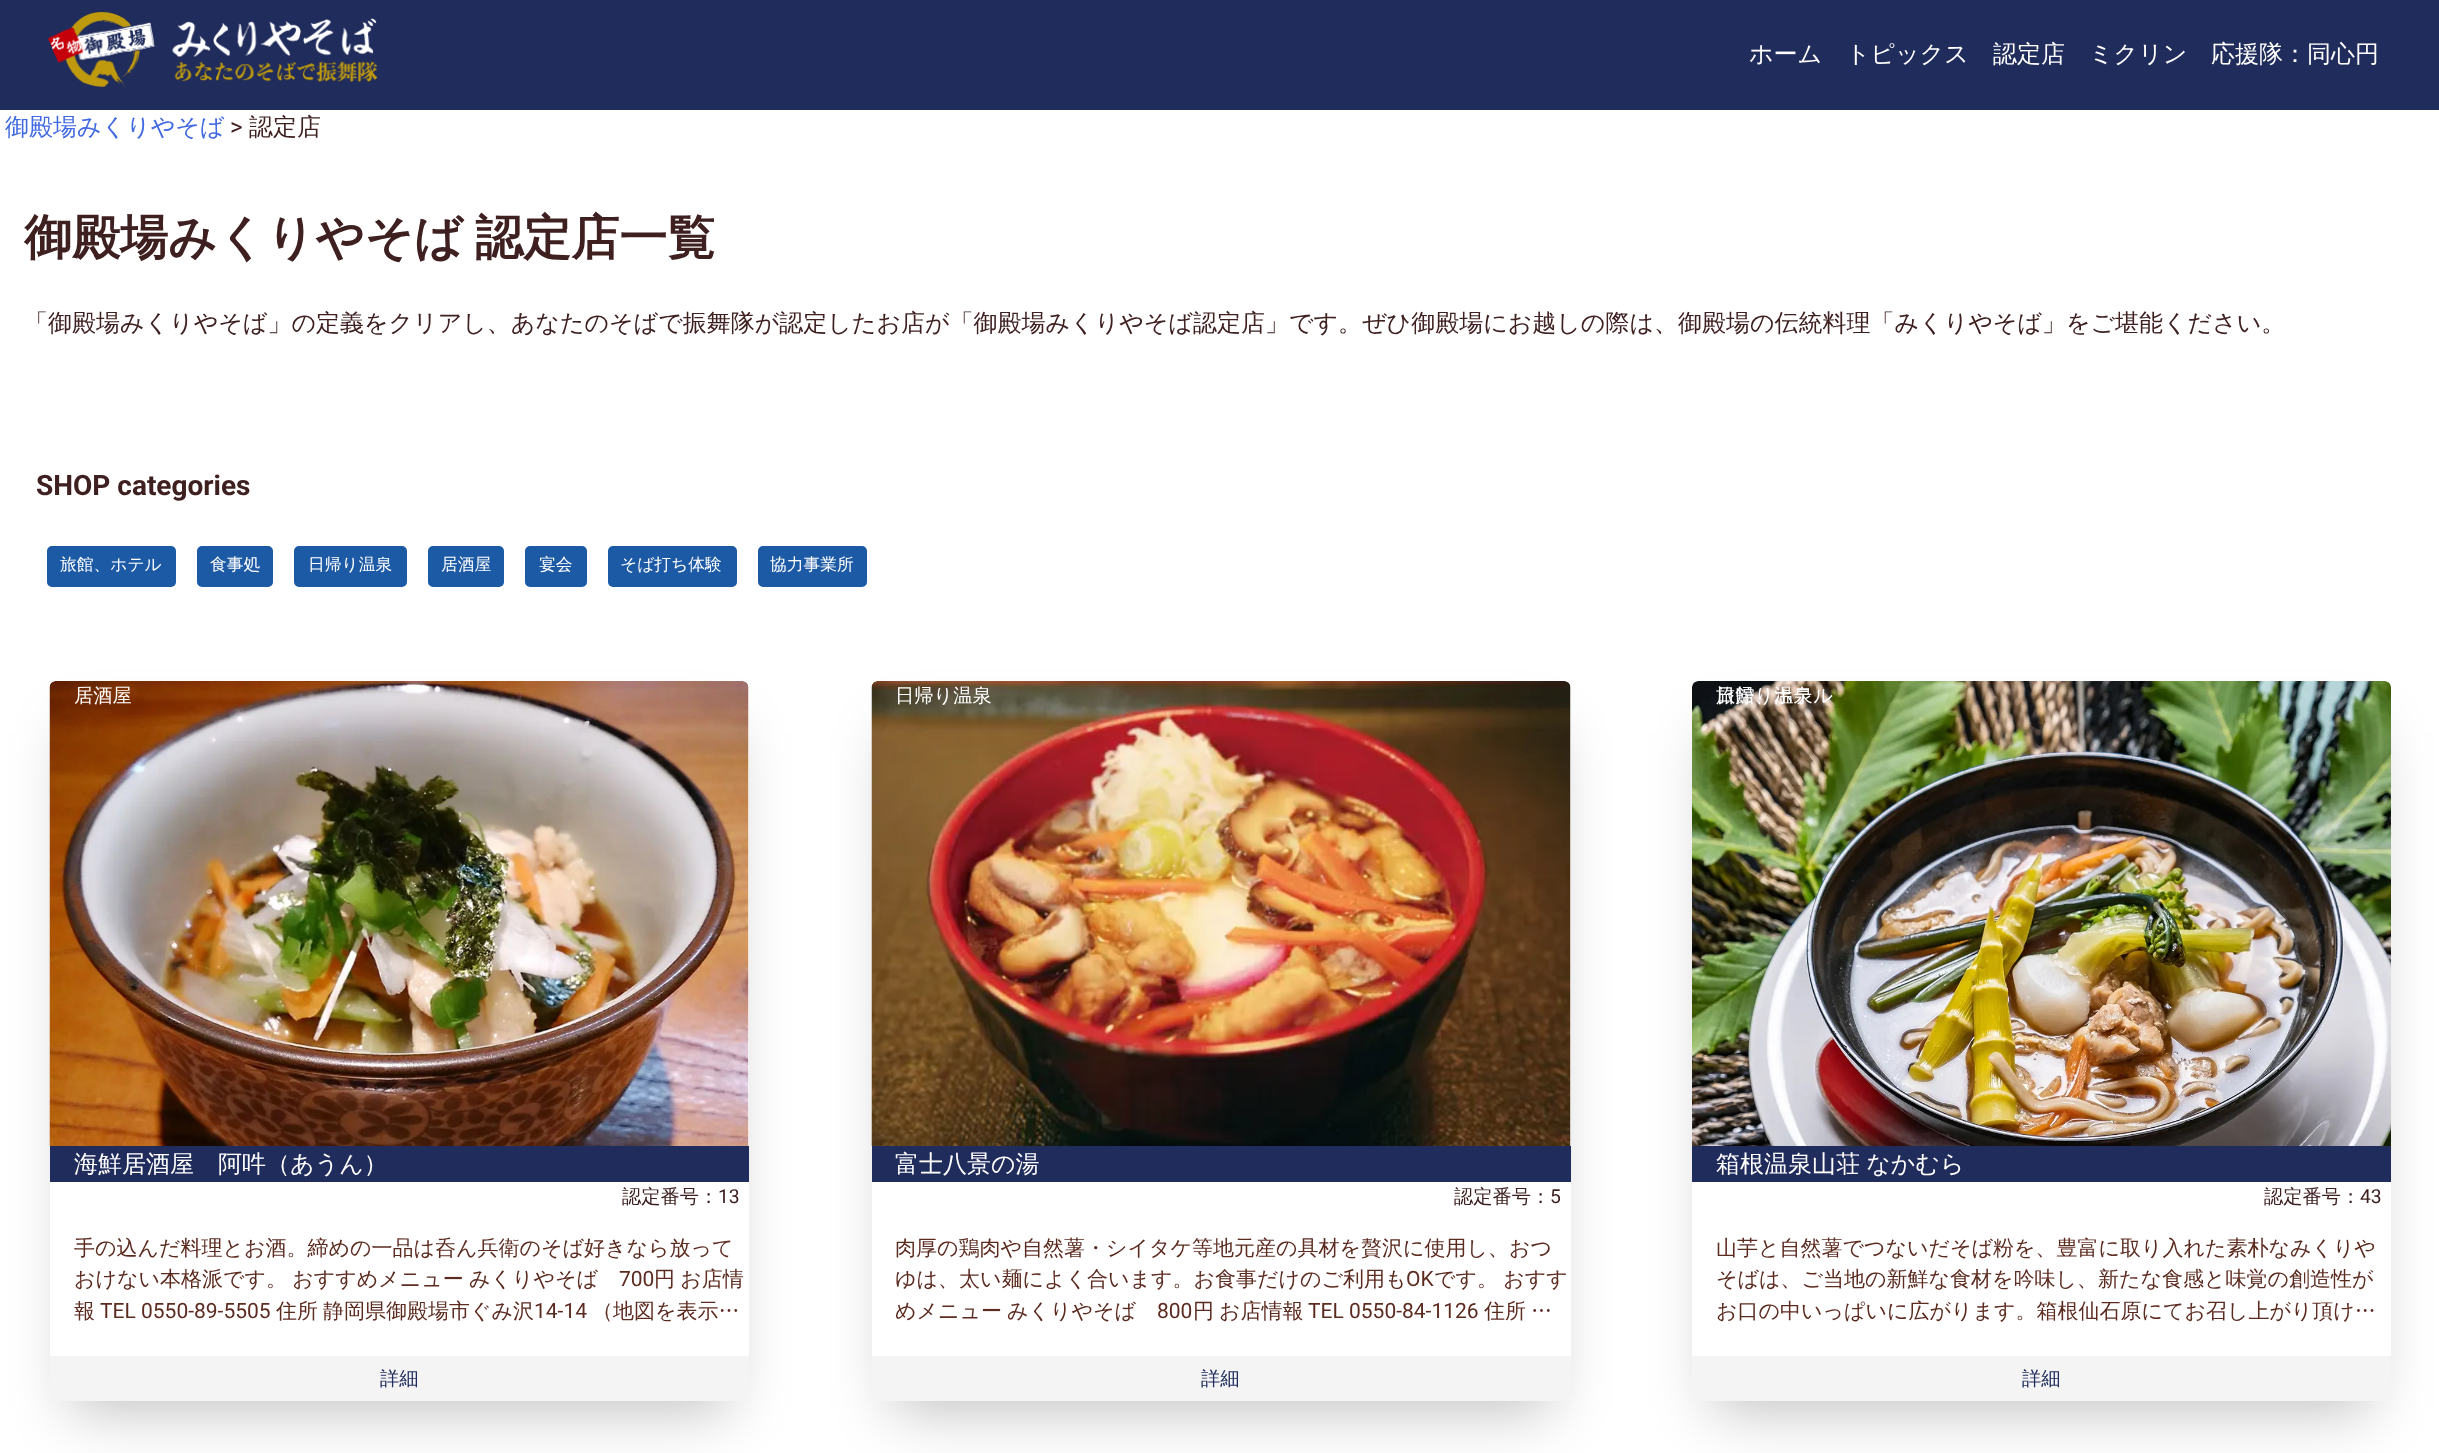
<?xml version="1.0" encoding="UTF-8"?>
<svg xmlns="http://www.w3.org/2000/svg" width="2439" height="1453">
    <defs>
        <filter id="blur1" x="-50%" y="-200%" width="200%" height="500%"><feGaussianBlur stdDeviation="30"/></filter>
    </defs>
    <rect width="100%" height="100%" fill="#FFFFFF"/>
    <rect x="0" y="0" width="2439" height="110" fill="#202C5C"/>
    <image x="48" y="12" width="330" height="75" href="img_01.png"/>
    <text x="1749" y="62" font-family="WenQuanYi Zen Hei" font-size="24" font-weight="500" fill="#FFFFFF">ホーム</text>
    <text x="1846" y="62" font-family="WenQuanYi Zen Hei" font-size="24" font-weight="500" fill="#FFFFFF">トピックス</text>
    <text x="1993" y="62" font-family="WenQuanYi Zen Hei" font-size="24" font-weight="500" fill="#FFFFFF">認定店</text>
    <text x="2089" y="62" font-family="WenQuanYi Zen Hei" font-size="24" font-weight="500" fill="#FFFFFF">ミクリン</text>
    <text x="2211" y="62" font-family="WenQuanYi Zen Hei" font-size="24" font-weight="500" fill="#FFFFFF">応援隊：同心円</text>
    <text x="5" y="135" font-family="WenQuanYi Zen Hei" font-size="24" font-weight="500" fill="#4169E1">御殿場みくりやそば</text>
    <text x="230" y="135" font-family="Roboto" font-size="24" fill="#3F2021">&gt;</text>
    <text x="249" y="135" font-family="WenQuanYi Zen Hei" font-size="24" font-weight="500" fill="#3F2021">認定店</text>
    <text x="24" y="254" word-spacing="-2" font-family="WenQuanYi Zen Hei" font-size="48" font-weight="700" fill="#3F2021">御殿場みくりやそば 認定店一覧</text>
    <text x="24" y="331" font-family="WenQuanYi Zen Hei" font-size="24" font-weight="500" fill="#3F2021">「御殿場みくりやそば」の定義をクリアし、あなたのそばで振舞隊が認定したお店が「御殿場みくりやそば認定店」です。ぜひ御殿場にお越しの際は、御殿場の伝統料理「みくりやそば」をご堪能ください。</text>
    <text x="36" y="495" font-family="Roboto" font-size="28" font-weight="700" fill="#3F2021">SHOP categories</text>
    <rect x="48" y="547" width="127" height="39" rx="4" fill="#1C5AA5" stroke="#1C5AA5" stroke-width="2"/>
    <text x="60" y="570" font-family="WenQuanYi Zen Hei" font-size="16.75" font-weight="500" fill="#FFFFFF">旅館、ホテル</text>
    <rect x="198" y="547" width="74" height="39" rx="4" fill="#1C5AA5" stroke="#1C5AA5" stroke-width="2"/>
    <text x="210" y="570" font-family="WenQuanYi Zen Hei" font-size="16.75" font-weight="500" fill="#FFFFFF">食事処</text>
    <rect x="295" y="547" width="111" height="39" rx="4" fill="#1C5AA5" stroke="#1C5AA5" stroke-width="2"/>
    <text x="308" y="570" font-family="WenQuanYi Zen Hei" font-size="16.75" font-weight="500" fill="#FFFFFF">日帰り温泉</text>
    <rect x="429" y="547" width="74" height="39" rx="4" fill="#1C5AA5" stroke="#1C5AA5" stroke-width="2"/>
    <text x="441" y="570" font-family="WenQuanYi Zen Hei" font-size="16.75" font-weight="500" fill="#FFFFFF">居酒屋</text>
    <rect x="526" y="547" width="60" height="39" rx="4" fill="#1C5AA5" stroke="#1C5AA5" stroke-width="2"/>
    <text x="539" y="570" font-family="WenQuanYi Zen Hei" font-size="16.75" font-weight="500" fill="#FFFFFF">宴会</text>
    <rect x="609" y="547" width="127" height="39" rx="4" fill="#1C5AA5" stroke="#1C5AA5" stroke-width="2"/>
    <text x="620" y="570" font-family="WenQuanYi Zen Hei" font-size="16.75" font-weight="500" fill="#FFFFFF">そば打ち体験</text>
    <rect x="759" y="547" width="107" height="39" rx="4" fill="#1C5AA5" stroke="#1C5AA5" stroke-width="2"/>
    <text x="770" y="570" font-family="WenQuanYi Zen Hei" font-size="16.75" font-weight="500" fill="#FFFFFF">協力事業所</text>
    <rect x="71" y="732" width="657" height="678" fill="#000000" fill-opacity="0.25" filter="url(#blur1)"/>
    <rect x="50" y="681" width="699" height="720" rx="6" fill="#FFFFFF"/>
    <image x="49" y="681" width="700" height="465" href="img_02.png"/>
    <text x="74" y="702" font-family="WenQuanYi Zen Hei" font-size="19.25" font-weight="500" fill="#FFFFFF">居酒屋</text>
    <rect x="50" y="1146" width="699" height="36" fill="#202C5C"/>
    <text x="74" y="1172" font-family="WenQuanYi Zen Hei" font-size="24" font-weight="500" fill="#FFFFFF">海鮮居酒屋　阿吽（あうん）</text>
    <text x="622" y="1203" font-family="WenQuanYi Zen Hei" font-size="19.25" font-weight="500" fill="#3F2021">認定番号：</text>
    <text x="718" y="1203" font-family="Roboto" font-size="19.25" fill="#3F2021">13</text>
    <text font-family="WenQuanYi Zen Hei" font-size="21" font-weight="500" fill="#5C2B20">
        <tspan x="74" y="1255">手の込んだ料理とお酒。締めの一品は呑ん兵衛のそば好きなら放って</tspan>
        <tspan x="74" y="1286" word-spacing="-1">おけない本格派です。 おすすめメニュー みくりやそば</tspan>
    </text>
    <text x="619" y="1286" font-family="Roboto" font-size="21" fill="#5C2B20">700</text>
    <text x="654" y="1286" word-spacing="-1" font-family="WenQuanYi Zen Hei" font-size="21" font-weight="500" fill="#5C2B20">円 お店情</text>
    <text x="74" y="1318" font-family="WenQuanYi Zen Hei" font-size="21" font-weight="500" fill="#5C2B20">報</text>
    <text x="100" y="1318" font-family="Roboto" font-size="21" fill="#5C2B20">TEL 0550-89-5505</text>
    <text x="276" y="1318" font-family="WenQuanYi Zen Hei" font-size="21" font-weight="500" fill="#5C2B20">住所</text>
    <text x="323" y="1318" font-family="WenQuanYi Zen Hei" font-size="21" font-weight="500" fill="#5C2B20">静岡県御殿場市ぐみ沢</text>
    <text x="534" y="1318" font-family="Roboto" font-size="21" fill="#5C2B20">14-14</text>
    <text x="592" y="1318" font-family="WenQuanYi Zen Hei" font-size="21" font-weight="500" fill="#5C2B20">（地図を表示…</text>
    <path d="M 50 1356 H 749 V 1395 C 749 1398.5 746.5 1401 743 1401 H 56 C 52.5 1401 50 1398.5 50 1395 Z" fill="#F4F4F4"/>
    <text x="380" y="1385" font-family="WenQuanYi Zen Hei" font-size="19.25" font-weight="500" fill="#202C5C">詳細</text>
    <rect x="893" y="732" width="657" height="678" fill="#000000" fill-opacity="0.25" filter="url(#blur1)"/>
    <rect x="872" y="681" width="699" height="720" rx="6" fill="#FFFFFF"/>
    <image x="871" y="681" width="700" height="465" href="img_03.png"/>
    <text x="895" y="702" font-family="WenQuanYi Zen Hei" font-size="19.25" font-weight="500" fill="#FFFFFF">日帰り温泉</text>
    <rect x="872" y="1146" width="699" height="36" fill="#202C5C"/>
    <text x="895" y="1172" font-family="WenQuanYi Zen Hei" font-size="24" font-weight="500" fill="#FFFFFF">富士八景の湯</text>
    <text x="1454" y="1203" font-family="WenQuanYi Zen Hei" font-size="19.25" font-weight="500" fill="#3F2021">認定番号：</text>
    <text x="1550" y="1203" font-family="Roboto" font-size="19.25" fill="#3F2021">5</text>
    <text font-family="WenQuanYi Zen Hei" font-size="21" font-weight="500" fill="#5C2B20">
        <tspan x="895" y="1255">肉厚の鶏肉や自然薯・シイタケ等地元産の具材を贅沢に使用し、おつ</tspan>
        <tspan x="895" y="1286">ゆは、太い麺によく合います。お食事だけのご利用も</tspan>
    </text>
    <text x="1406" y="1286" font-family="Roboto" font-size="21" fill="#5C2B20">OK</text>
    <text x="1434" y="1286" word-spacing="-1" font-family="WenQuanYi Zen Hei" font-size="21" font-weight="500" fill="#5C2B20">です。 おすす</text>
    <text x="895" y="1318" font-family="WenQuanYi Zen Hei" font-size="21" font-weight="500" fill="#5C2B20">めメニュー</text>
    <text x="1007" y="1318" font-family="WenQuanYi Zen Hei" font-size="21" font-weight="500" fill="#5C2B20">みくりやそば</text>
    <text x="1157" y="1318" font-family="Roboto" font-size="21" fill="#5C2B20">800</text>
    <text x="1193" y="1318" font-family="WenQuanYi Zen Hei" font-size="21" font-weight="500" fill="#5C2B20">円</text>
    <text x="1219" y="1318" font-family="WenQuanYi Zen Hei" font-size="21" font-weight="500" fill="#5C2B20">お店情報</text>
    <text x="1308" y="1318" font-family="Roboto" font-size="21" fill="#5C2B20">TEL 0550-84-1126</text>
    <text x="1484" y="1318" font-family="WenQuanYi Zen Hei" font-size="21" font-weight="500" fill="#5C2B20">住所</text>
    <text x="1531" y="1318" font-family="WenQuanYi Zen Hei" font-size="21" font-weight="500" fill="#5C2B20">…</text>
    <path d="M 872 1356 H 1571 V 1395 C 1571 1398.5 1568.5 1401 1565 1401 H 878 C 874.5 1401 872 1398.5 872 1395 Z" fill="#F4F4F4"/>
    <text x="1201" y="1385" font-family="WenQuanYi Zen Hei" font-size="19.25" font-weight="500" fill="#202C5C">詳細</text>
    <rect x="1713" y="732" width="657" height="678" fill="#000000" fill-opacity="0.25" filter="url(#blur1)"/>
    <rect x="1692" y="681" width="699" height="720" rx="6" fill="#FFFFFF"/>
    <image x="1692" y="681" width="699" height="465" href="img_04.png"/>
    <text x="1716" y="702" font-family="WenQuanYi Zen Hei" font-size="19.25" font-weight="500" fill="#FFFFFF">旅館、ホテル</text>
    <text x="1716" y="702" font-family="WenQuanYi Zen Hei" font-size="19.25" font-weight="500" fill="#FFFFFF">日帰り温泉</text>
    <rect x="1692" y="1146" width="699" height="36" fill="#202C5C"/>
    <text x="1716" y="1172" word-spacing="-1" font-family="WenQuanYi Zen Hei" font-size="24" font-weight="500" fill="#FFFFFF">箱根温泉山荘 なかむら</text>
    <text x="2264" y="1203" font-family="WenQuanYi Zen Hei" font-size="19.25" font-weight="500" fill="#3F2021">認定番号：</text>
    <text x="2360" y="1203" font-family="Roboto" font-size="19.25" fill="#3F2021">43</text>
    <text font-family="WenQuanYi Zen Hei" font-size="21" font-weight="500" fill="#5C2B20">
        <tspan x="1716" y="1255">山芋と自然薯でつないだそば粉を、豊富に取り入れた素朴なみくりや</tspan>
        <tspan x="1716" y="1286">そばは、ご当地の新鮮な食材を吟味し、新たな食感と味覚の創造性が</tspan>
        <tspan x="1716" y="1318">お口の中いっぱいに広がります。箱根仙石原にてお召し上がり頂け…</tspan>
    </text>
    <path d="M 1692 1356 H 2391 V 1395 C 2391 1398.5 2388.5 1401 2385 1401 H 1698 C 1694.5 1401 1692 1398.5 1692 1395 Z" fill="#F4F4F4"/>
    <text x="2022" y="1385" font-family="WenQuanYi Zen Hei" font-size="19.25" font-weight="500" fill="#202C5C">詳細</text>
</svg>
